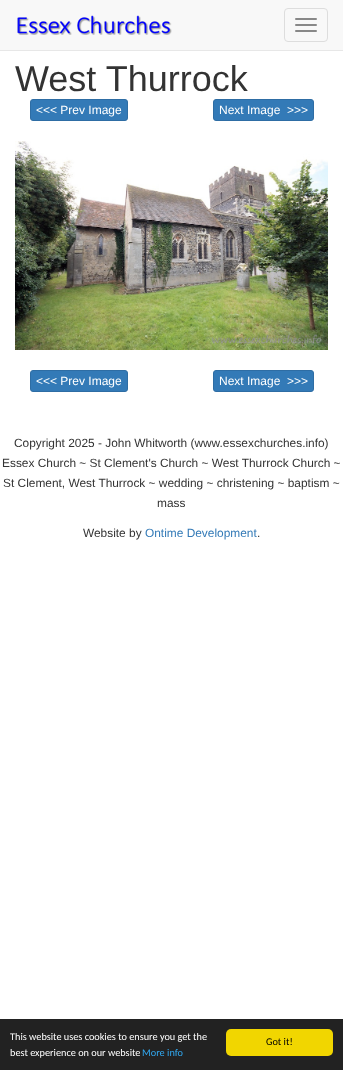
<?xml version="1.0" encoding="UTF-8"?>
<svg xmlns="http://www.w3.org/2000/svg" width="343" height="1070">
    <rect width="100%" height="100%" fill="#FFFFFF"/>
    <rect x="0" y="0" width="343" height="50" fill="#F8F8F8"/>
    <rect x="0" y="50" width="343" height="1" fill="#E7E7E7"/>
    <image x="17" y="15" width="155" height="20" href="img_01.png"/>
    <rect x="284.5" y="8.5" width="43" height="33" rx="3.5" fill="none" stroke="#DDDDDD"/>
    <rect x="295" y="18" width="22" height="2" rx="1" fill="#888888"/>
    <rect x="295" y="24" width="22" height="2" rx="1" fill="#888888"/>
    <rect x="295" y="30" width="22" height="2" rx="1" fill="#888888"/>
    <text x="15" y="91" font-family="Liberation Sans" font-size="36" fill="#333333">West Thurrock</text>
    <rect x="30.5" y="99.5" width="97" height="21" rx="2.5" fill="#337AB7" stroke="#2E6DA4"/>
    <text x="36" y="114" font-family="Liberation Sans" font-size="12" fill="#FFFFFF">&lt;&lt;&lt; Prev Image</text>
    <rect x="213.5" y="99.5" width="100" height="21" rx="2.5" fill="#337AB7" stroke="#2E6DA4"/>
    <text x="219" y="114" font-family="Liberation Sans" font-size="12" fill="#FFFFFF" xml:space="preserve">Next Image  &gt;&gt;&gt;</text>
    <image x="15" y="141" width="313" height="209" href="img_02.png"/>
    <rect x="30.5" y="370.5" width="97" height="21" rx="2.5" fill="#337AB7" stroke="#2E6DA4"/>
    <text x="36" y="385" font-family="Liberation Sans" font-size="12" fill="#FFFFFF">&lt;&lt;&lt; Prev Image</text>
    <rect x="213.5" y="370.5" width="100" height="21" rx="2.5" fill="#337AB7" stroke="#2E6DA4"/>
    <text x="219" y="385" font-family="Liberation Sans" font-size="12" fill="#FFFFFF" xml:space="preserve">Next Image  &gt;&gt;&gt;</text>
    <text x="14" y="447" font-family="Liberation Sans" font-size="11.9" fill="#333333">Copyright 2025 - John Whitworth (www.essexchurches.info)</text>
    <text x="2" y="467" font-family="Liberation Sans" font-size="11.9" fill="#333333">Essex Church ~ St Clement's Church ~ West Thurrock Church ~</text>
    <text x="3" y="487" font-family="Liberation Sans" font-size="11.9" fill="#333333">St Clement, West Thurrock ~ wedding ~ christening ~ baptism ~</text>
    <text x="157" y="507" font-family="Liberation Sans" font-size="11.9" fill="#333333">mass</text>
    <text x="83" y="537" font-family="Liberation Sans" font-size="11.9" fill="#333333">Website by</text>
    <text x="145" y="537" font-family="Liberation Sans" font-size="11.9" fill="#337AB7">Ontime Development</text>
    <text x="257" y="537" font-family="Liberation Sans" font-size="11.9" fill="#333333">.</text>
    <rect x="0" y="1019" width="343" height="51" fill="#222222"/>
    <text font-family="Carlito" font-size="10.25" fill="#FFFFFF">
        <tspan x="10" y="1040">This website uses cookies to ensure you get the</tspan>
        <tspan x="10" y="1056">best experience on our website</tspan>
    </text>
    <text x="142" y="1056" font-family="Carlito" font-size="10.25" fill="#31A8F0">More info</text>
    <rect x="226" y="1029" width="107" height="27" rx="5" fill="#F1D600"/>
    <text x="266" y="1045" font-family="Carlito" font-size="10.25" fill="#000000">Got it!</text>
</svg>
